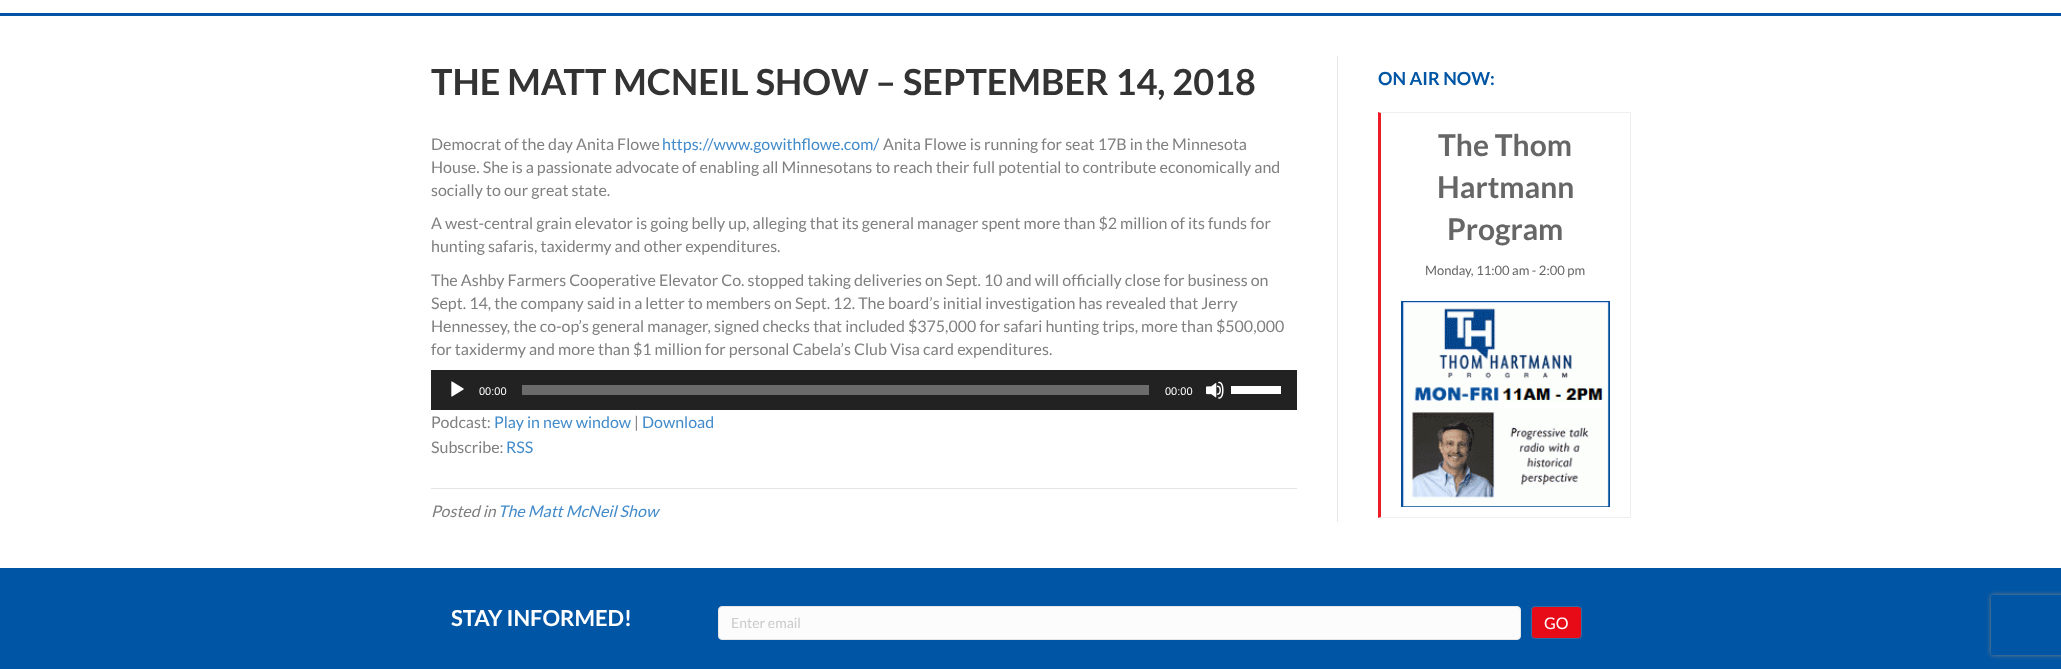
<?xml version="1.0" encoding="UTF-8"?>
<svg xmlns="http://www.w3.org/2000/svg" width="2061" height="669">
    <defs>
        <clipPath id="clip1"><path d="M 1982 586 H 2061 V 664 H 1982 Z M 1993 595 H 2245 C 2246 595 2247 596 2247 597 V 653 C 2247 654 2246 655 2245 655 H 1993 C 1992 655 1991 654 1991 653 V 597 C 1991 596 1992 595 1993 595 Z" clip-rule="evenodd"/></clipPath>
        <filter id="blur1" x="-50%" y="-200%" width="200%" height="500%"><feGaussianBlur stdDeviation="2.5"/></filter>
    </defs>
    <rect width="100%" height="100%" fill="#FFFFFF"/>
    <rect x="0" y="13" width="2061" height="3" fill="#0054A5"/>
    <rect x="1337" y="56" width="1" height="466" fill="#E6E6E6"/>
    <text x="431" y="95" font-family="Lato" font-size="36" font-weight="700" fill="#333333">THE MATT MCNEIL SHOW – SEPTEMBER 14, 2018</text>
    <text x="431" y="150" font-family="Lato" font-size="16" fill="#808080">Democrat of the day Anita Flowe</text>
    <text x="662" y="150" font-family="Lato" font-size="16" fill="#428BCA">https://www.gowithflowe.com/</text>
    <text x="883" y="150" font-family="Lato" font-size="16" fill="#808080">Anita Flowe is running for seat 17B in the Minnesota</text>
    <text font-family="Lato" font-size="16" fill="#808080">
        <tspan x="431" y="173">House. She is a passionate advocate of enabling all Minnesotans to reach their full potential to contribute economically and</tspan>
        <tspan x="431" y="196">socially to our great state.</tspan>
    </text>
    <text font-family="Lato" font-size="16" fill="#808080">
        <tspan x="431" y="229">A west-central grain elevator is going belly up, alleging that its general manager spent more than $2 million of its funds for</tspan>
        <tspan x="431" y="252">hunting safaris, taxidermy and other expenditures.</tspan>
    </text>
    <text font-family="Lato" font-size="16" fill="#808080">
        <tspan x="431" y="286">The Ashby Farmers Cooperative Elevator Co. stopped taking deliveries on Sept. 10 and will officially close for business on</tspan>
        <tspan x="431" y="309">Sept. 14, the company said in a letter to members on Sept. 12. The board’s initial investigation has revealed that Jerry</tspan>
        <tspan x="431" y="332">Hennessey, the co-op’s general manager, signed checks that included $375,000 for safari hunting trips, more than $500,000</tspan>
        <tspan x="431" y="355">for taxidermy and more than $1 million for personal Cabela’s Club Visa card expenditures.</tspan>
    </text>
    <rect x="431" y="370" width="866" height="40" fill="#222222"/>
    <image x="451" y="381" width="13" height="16" href="img_01.png"/>
    <text x="479" y="395" font-family="Liberation Sans" font-size="11" fill="#FFFFFF">00:00</text>
    <rect x="522" y="385" width="627" height="10" fill="#6B6B6B"/>
    <text x="1165" y="395" font-family="Liberation Sans" font-size="11" fill="#FFFFFF">00:00</text>
    <image x="1206" y="381" width="18" height="18" href="img_02.png"/>
    <rect x="1231" y="386" width="50" height="8" fill="#FFFFFF"/>
    <text x="431" y="428" font-family="Lato" font-size="16" fill="#808080">Podcast:</text>
    <text x="494" y="428" font-family="Lato" font-size="16" fill="#428BCA">Play in new window</text>
    <text x="634" y="428" font-family="Lato" font-size="16" fill="#808080">|</text>
    <text x="642" y="428" font-family="Lato" font-size="16" fill="#428BCA">Download</text>
    <text x="431" y="453" font-family="Lato" font-size="16" fill="#808080">Subscribe:</text>
    <text x="506" y="453" font-family="Lato" font-size="16" fill="#428BCA">RSS</text>
    <rect x="431" y="488" width="866" height="1" fill="#E6E6E6"/>
    <text x="431" y="517" font-family="Lato" font-size="16" font-style="italic" fill="#808080">Posted in</text>
    <text x="498" y="517" font-family="Lato" font-size="16" font-style="italic" fill="#428BCA">The Matt McNeil Show</text>
    <text x="1378" y="85" font-family="Lato" font-size="18" font-weight="700" fill="#0055A5">ON AIR NOW:</text>
    <path d="M 1378 112 H 1631 L 1630 113 H 1381 Z" fill="#EFEFEF"/>
    <rect x="1630" y="112" width="1" height="406" fill="#EFEFEF"/>
    <path d="M 1631 518 H 1378 L 1381 517 H 1630 Z" fill="#EFEFEF"/>
    <path d="M 1378 518 V 112 L 1381 113 V 517 Z" fill="#ED1B25"/>
    <text x="1438" y="156" font-family="Lato" font-size="30" font-weight="700" fill="#666666">The Thom</text>
    <text x="1437" y="198" font-family="Lato" font-size="30" font-weight="700" fill="#666666">Hartmann</text>
    <text x="1447" y="240" font-family="Lato" font-size="30" font-weight="700" fill="#666666">Program</text>
    <text x="1425" y="275" font-family="Lato" font-size="13" fill="#666666">Monday, 11:00 am - 2:00 pm</text>
    <image x="1401" y="301" width="209" height="206" href="img_03.png"/>
    <rect x="0" y="568" width="2061" height="101" fill="#0055A5"/>
    <text x="451" y="626" font-family="Lato" font-size="22" font-weight="700" fill="#FFFFFF">STAY INFORMED!</text>
    <rect x="718.5" y="606.5" width="802" height="33" rx="3.5" fill="#FCFCFC" stroke="#E6E6E6"/>
    <text x="731" y="628" font-family="Lato" font-size="14" fill="#CACACA">Enter email</text>
    <rect x="1531.5" y="606.5" width="50" height="32" rx="3.5" fill="#E70B18" stroke="#2D6CA2"/>
    <text x="1544" y="629" font-family="Lato" font-size="16" fill="#FFFFFF">GO</text>
    <g clip-path="url(#clip1)">
        <rect x="1991" y="595" width="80" height="60" rx="2" fill="#808080" filter="url(#blur1)"/>
    </g>
</svg>
